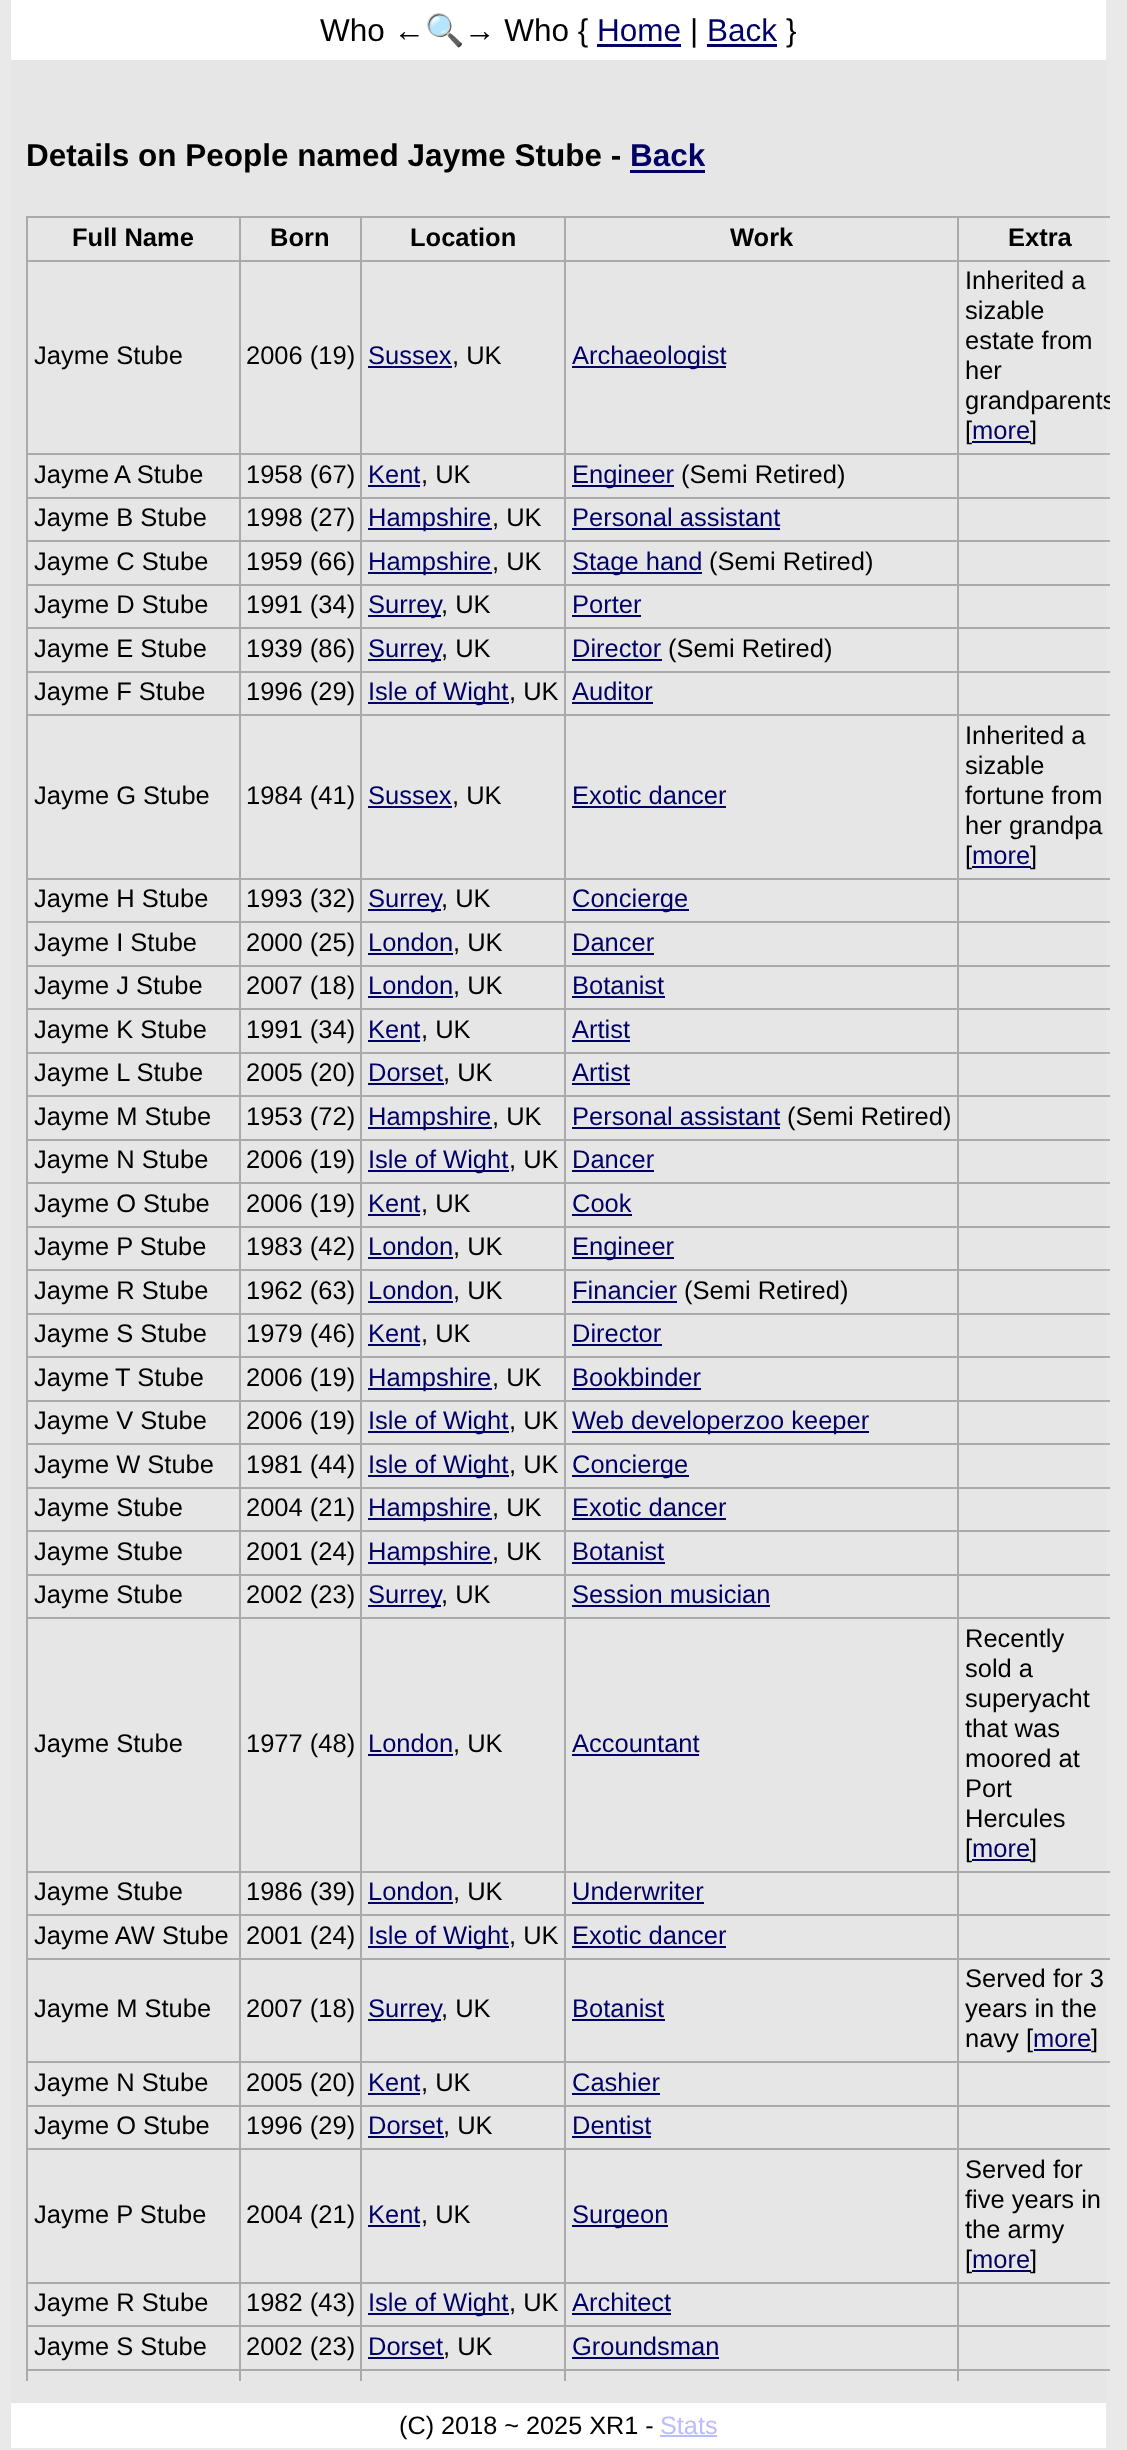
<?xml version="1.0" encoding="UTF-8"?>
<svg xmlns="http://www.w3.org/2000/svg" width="1127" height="2450">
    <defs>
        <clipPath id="clip1"><rect x="26" y="60" width="1084" height="2321"/></clipPath>
    </defs>
    <rect width="100%" height="100%" fill="#E9E9E9"/>
    <rect x="11" y="60" width="1095" height="2343" fill="#E6E6E6"/>
    <rect x="11" y="0" width="1095" height="60" fill="#FFFFFF"/>
    <text x="320" y="41" font-family="Liberation Sans" font-size="31.5" fill="#000000">Who ←</text>
    <text x="425" y="41" font-family="Noto Color Emoji" font-size="31.5" fill="#000000">🔍</text>
    <text x="464" y="41" font-family="Liberation Sans" font-size="31.5" fill="#000000">→ Who {</text>
    <text x="597" y="41" font-family="Liberation Sans" font-size="31.5" fill="#000066">Home</text>
    <rect x="597" y="44" width="84" height="3" fill="#000066"/>
    <text x="690" y="41" font-family="Liberation Sans" font-size="31.5" fill="#000000">|</text>
    <text x="707" y="41" font-family="Liberation Sans" font-size="31.5" fill="#000066">Back</text>
    <rect x="707" y="44" width="70" height="3" fill="#000066"/>
    <text x="786" y="41" font-family="Liberation Sans" font-size="31.5" fill="#000000">}</text>
    <text x="26" y="166" font-family="Liberation Sans" font-size="31.5" font-weight="700" fill="#000000">Details on People named Jayme Stube -</text>
    <text x="630" y="166" font-family="Liberation Sans" font-size="31.5" font-weight="700" fill="#000066">Back</text>
    <rect x="630" y="170" width="75" height="3" fill="#000066"/>
    <rect x="26" y="216" width="1084" height="2" fill="#AAAAAA"/>
    <rect x="26" y="216" width="2" height="2165" fill="#AAAAAA"/>
    <text x="72" y="246" font-family="Liberation Sans" font-size="25.5" font-weight="700" fill="#000000">Full Name</text>
    <rect x="957" y="260" width="153" height="2" fill="#AAAAAA"/>
    <rect x="957" y="453" width="153" height="2" fill="#AAAAAA"/>
    <rect x="957" y="497" width="153" height="2" fill="#AAAAAA"/>
    <rect x="957" y="540" width="153" height="2" fill="#AAAAAA"/>
    <rect x="957" y="584" width="153" height="2" fill="#AAAAAA"/>
    <rect x="957" y="627" width="153" height="2" fill="#AAAAAA"/>
    <rect x="957" y="671" width="153" height="2" fill="#AAAAAA"/>
    <rect x="957" y="714" width="153" height="2" fill="#AAAAAA"/>
    <rect x="957" y="878" width="153" height="2" fill="#AAAAAA"/>
    <rect x="957" y="921" width="153" height="2" fill="#AAAAAA"/>
    <rect x="957" y="965" width="153" height="2" fill="#AAAAAA"/>
    <rect x="957" y="1008" width="153" height="2" fill="#AAAAAA"/>
    <rect x="957" y="1052" width="153" height="2" fill="#AAAAAA"/>
    <rect x="957" y="1095" width="153" height="2" fill="#AAAAAA"/>
    <rect x="957" y="1139" width="153" height="2" fill="#AAAAAA"/>
    <rect x="957" y="1182" width="153" height="2" fill="#AAAAAA"/>
    <rect x="957" y="1226" width="153" height="2" fill="#AAAAAA"/>
    <rect x="957" y="1269" width="153" height="2" fill="#AAAAAA"/>
    <rect x="957" y="1313" width="153" height="2" fill="#AAAAAA"/>
    <rect x="957" y="1356" width="153" height="2" fill="#AAAAAA"/>
    <rect x="957" y="1400" width="153" height="2" fill="#AAAAAA"/>
    <rect x="957" y="1443" width="153" height="2" fill="#AAAAAA"/>
    <rect x="957" y="1487" width="153" height="2" fill="#AAAAAA"/>
    <rect x="957" y="1530" width="153" height="2" fill="#AAAAAA"/>
    <rect x="957" y="1574" width="153" height="2" fill="#AAAAAA"/>
    <rect x="957" y="1617" width="153" height="2" fill="#AAAAAA"/>
    <rect x="957" y="1871" width="153" height="2" fill="#AAAAAA"/>
    <rect x="957" y="1914" width="153" height="2" fill="#AAAAAA"/>
    <rect x="957" y="1958" width="153" height="2" fill="#AAAAAA"/>
    <rect x="957" y="2061" width="153" height="2" fill="#AAAAAA"/>
    <rect x="957" y="2105" width="153" height="2" fill="#AAAAAA"/>
    <rect x="957" y="2148" width="153" height="2" fill="#AAAAAA"/>
    <rect x="957" y="2282" width="153" height="2" fill="#AAAAAA"/>
    <rect x="957" y="2325" width="153" height="2" fill="#AAAAAA"/>
    <rect x="957" y="2369" width="153" height="2" fill="#AAAAAA"/>
    <rect x="957" y="2369" width="2" height="12" fill="#AAAAAA"/>
    <rect x="564" y="2369" width="395" height="2" fill="#AAAAAA"/>
    <rect x="957" y="2325" width="2" height="45" fill="#AAAAAA"/>
    <rect x="564" y="2325" width="395" height="2" fill="#AAAAAA"/>
    <rect x="957" y="2282" width="2" height="45" fill="#AAAAAA"/>
    <rect x="564" y="2282" width="395" height="2" fill="#AAAAAA"/>
    <rect x="957" y="2148" width="2" height="135" fill="#AAAAAA"/>
    <rect x="564" y="2148" width="395" height="2" fill="#AAAAAA"/>
    <rect x="957" y="2105" width="2" height="45" fill="#AAAAAA"/>
    <rect x="564" y="2105" width="395" height="2" fill="#AAAAAA"/>
    <rect x="957" y="2061" width="2" height="45" fill="#AAAAAA"/>
    <rect x="564" y="2061" width="395" height="2" fill="#AAAAAA"/>
    <rect x="957" y="1958" width="2" height="105" fill="#AAAAAA"/>
    <rect x="564" y="1958" width="395" height="2" fill="#AAAAAA"/>
    <rect x="957" y="1914" width="2" height="45" fill="#AAAAAA"/>
    <rect x="564" y="1914" width="395" height="2" fill="#AAAAAA"/>
    <rect x="957" y="1871" width="2" height="45" fill="#AAAAAA"/>
    <rect x="564" y="1871" width="395" height="2" fill="#AAAAAA"/>
    <rect x="957" y="1617" width="2" height="255" fill="#AAAAAA"/>
    <rect x="564" y="1617" width="395" height="2" fill="#AAAAAA"/>
    <rect x="957" y="1574" width="2" height="45" fill="#AAAAAA"/>
    <rect x="564" y="1574" width="395" height="2" fill="#AAAAAA"/>
    <rect x="957" y="1530" width="2" height="45" fill="#AAAAAA"/>
    <rect x="564" y="1530" width="395" height="2" fill="#AAAAAA"/>
    <rect x="957" y="1487" width="2" height="45" fill="#AAAAAA"/>
    <rect x="564" y="1487" width="395" height="2" fill="#AAAAAA"/>
    <rect x="957" y="1443" width="2" height="45" fill="#AAAAAA"/>
    <rect x="564" y="1443" width="395" height="2" fill="#AAAAAA"/>
    <rect x="957" y="1400" width="2" height="45" fill="#AAAAAA"/>
    <rect x="564" y="1400" width="395" height="2" fill="#AAAAAA"/>
    <rect x="957" y="1356" width="2" height="45" fill="#AAAAAA"/>
    <rect x="564" y="1356" width="395" height="2" fill="#AAAAAA"/>
    <rect x="957" y="1313" width="2" height="45" fill="#AAAAAA"/>
    <rect x="564" y="1313" width="395" height="2" fill="#AAAAAA"/>
    <rect x="957" y="1269" width="2" height="45" fill="#AAAAAA"/>
    <rect x="564" y="1269" width="395" height="2" fill="#AAAAAA"/>
    <rect x="957" y="1226" width="2" height="45" fill="#AAAAAA"/>
    <rect x="564" y="1226" width="395" height="2" fill="#AAAAAA"/>
    <rect x="957" y="1182" width="2" height="45" fill="#AAAAAA"/>
    <rect x="564" y="1182" width="395" height="2" fill="#AAAAAA"/>
    <rect x="957" y="1139" width="2" height="45" fill="#AAAAAA"/>
    <rect x="564" y="1139" width="395" height="2" fill="#AAAAAA"/>
    <rect x="957" y="1095" width="2" height="45" fill="#AAAAAA"/>
    <rect x="564" y="1095" width="395" height="2" fill="#AAAAAA"/>
    <rect x="957" y="1052" width="2" height="45" fill="#AAAAAA"/>
    <rect x="564" y="1052" width="395" height="2" fill="#AAAAAA"/>
    <rect x="957" y="1008" width="2" height="45" fill="#AAAAAA"/>
    <rect x="564" y="1008" width="395" height="2" fill="#AAAAAA"/>
    <rect x="957" y="965" width="2" height="45" fill="#AAAAAA"/>
    <rect x="564" y="965" width="395" height="2" fill="#AAAAAA"/>
    <rect x="957" y="921" width="2" height="45" fill="#AAAAAA"/>
    <rect x="564" y="921" width="395" height="2" fill="#AAAAAA"/>
    <rect x="957" y="878" width="2" height="45" fill="#AAAAAA"/>
    <rect x="564" y="878" width="395" height="2" fill="#AAAAAA"/>
    <rect x="957" y="714" width="2" height="165" fill="#AAAAAA"/>
    <rect x="564" y="714" width="395" height="2" fill="#AAAAAA"/>
    <rect x="957" y="671" width="2" height="45" fill="#AAAAAA"/>
    <rect x="564" y="671" width="395" height="2" fill="#AAAAAA"/>
    <rect x="957" y="627" width="2" height="45" fill="#AAAAAA"/>
    <rect x="564" y="627" width="395" height="2" fill="#AAAAAA"/>
    <rect x="957" y="584" width="2" height="45" fill="#AAAAAA"/>
    <rect x="564" y="584" width="395" height="2" fill="#AAAAAA"/>
    <rect x="957" y="540" width="2" height="45" fill="#AAAAAA"/>
    <rect x="564" y="540" width="395" height="2" fill="#AAAAAA"/>
    <rect x="957" y="497" width="2" height="45" fill="#AAAAAA"/>
    <rect x="564" y="497" width="395" height="2" fill="#AAAAAA"/>
    <rect x="957" y="453" width="2" height="45" fill="#AAAAAA"/>
    <rect x="564" y="453" width="395" height="2" fill="#AAAAAA"/>
    <rect x="957" y="260" width="2" height="195" fill="#AAAAAA"/>
    <rect x="564" y="260" width="395" height="2" fill="#AAAAAA"/>
    <rect x="564" y="2369" width="2" height="12" fill="#AAAAAA"/>
    <rect x="360" y="2369" width="206" height="2" fill="#AAAAAA"/>
    <rect x="564" y="2325" width="2" height="45" fill="#AAAAAA"/>
    <rect x="360" y="2325" width="206" height="2" fill="#AAAAAA"/>
    <rect x="564" y="2282" width="2" height="45" fill="#AAAAAA"/>
    <rect x="360" y="2282" width="206" height="2" fill="#AAAAAA"/>
    <rect x="564" y="2148" width="2" height="135" fill="#AAAAAA"/>
    <rect x="360" y="2148" width="206" height="2" fill="#AAAAAA"/>
    <rect x="564" y="2105" width="2" height="45" fill="#AAAAAA"/>
    <rect x="360" y="2105" width="206" height="2" fill="#AAAAAA"/>
    <rect x="564" y="2061" width="2" height="45" fill="#AAAAAA"/>
    <rect x="360" y="2061" width="206" height="2" fill="#AAAAAA"/>
    <rect x="564" y="1958" width="2" height="105" fill="#AAAAAA"/>
    <rect x="360" y="1958" width="206" height="2" fill="#AAAAAA"/>
    <rect x="564" y="1914" width="2" height="45" fill="#AAAAAA"/>
    <rect x="360" y="1914" width="206" height="2" fill="#AAAAAA"/>
    <rect x="564" y="1871" width="2" height="45" fill="#AAAAAA"/>
    <rect x="360" y="1871" width="206" height="2" fill="#AAAAAA"/>
    <rect x="564" y="1617" width="2" height="255" fill="#AAAAAA"/>
    <rect x="360" y="1617" width="206" height="2" fill="#AAAAAA"/>
    <rect x="564" y="1574" width="2" height="45" fill="#AAAAAA"/>
    <rect x="360" y="1574" width="206" height="2" fill="#AAAAAA"/>
    <rect x="564" y="1530" width="2" height="45" fill="#AAAAAA"/>
    <rect x="360" y="1530" width="206" height="2" fill="#AAAAAA"/>
    <rect x="564" y="1487" width="2" height="45" fill="#AAAAAA"/>
    <rect x="360" y="1487" width="206" height="2" fill="#AAAAAA"/>
    <rect x="564" y="1443" width="2" height="45" fill="#AAAAAA"/>
    <rect x="360" y="1443" width="206" height="2" fill="#AAAAAA"/>
    <rect x="564" y="1400" width="2" height="45" fill="#AAAAAA"/>
    <rect x="360" y="1400" width="206" height="2" fill="#AAAAAA"/>
    <rect x="564" y="1356" width="2" height="45" fill="#AAAAAA"/>
    <rect x="360" y="1356" width="206" height="2" fill="#AAAAAA"/>
    <rect x="564" y="1313" width="2" height="45" fill="#AAAAAA"/>
    <rect x="360" y="1313" width="206" height="2" fill="#AAAAAA"/>
    <rect x="564" y="1269" width="2" height="45" fill="#AAAAAA"/>
    <rect x="360" y="1269" width="206" height="2" fill="#AAAAAA"/>
    <rect x="564" y="1226" width="2" height="45" fill="#AAAAAA"/>
    <rect x="360" y="1226" width="206" height="2" fill="#AAAAAA"/>
    <rect x="564" y="1182" width="2" height="45" fill="#AAAAAA"/>
    <rect x="360" y="1182" width="206" height="2" fill="#AAAAAA"/>
    <rect x="564" y="1139" width="2" height="45" fill="#AAAAAA"/>
    <rect x="360" y="1139" width="206" height="2" fill="#AAAAAA"/>
    <rect x="564" y="1095" width="2" height="45" fill="#AAAAAA"/>
    <rect x="360" y="1095" width="206" height="2" fill="#AAAAAA"/>
    <rect x="564" y="1052" width="2" height="45" fill="#AAAAAA"/>
    <rect x="360" y="1052" width="206" height="2" fill="#AAAAAA"/>
    <rect x="564" y="1008" width="2" height="45" fill="#AAAAAA"/>
    <rect x="360" y="1008" width="206" height="2" fill="#AAAAAA"/>
    <rect x="564" y="965" width="2" height="45" fill="#AAAAAA"/>
    <rect x="360" y="965" width="206" height="2" fill="#AAAAAA"/>
    <rect x="564" y="921" width="2" height="45" fill="#AAAAAA"/>
    <rect x="360" y="921" width="206" height="2" fill="#AAAAAA"/>
    <rect x="564" y="878" width="2" height="45" fill="#AAAAAA"/>
    <rect x="360" y="878" width="206" height="2" fill="#AAAAAA"/>
    <rect x="564" y="714" width="2" height="165" fill="#AAAAAA"/>
    <rect x="360" y="714" width="206" height="2" fill="#AAAAAA"/>
    <rect x="564" y="671" width="2" height="45" fill="#AAAAAA"/>
    <rect x="360" y="671" width="206" height="2" fill="#AAAAAA"/>
    <rect x="564" y="627" width="2" height="45" fill="#AAAAAA"/>
    <rect x="360" y="627" width="206" height="2" fill="#AAAAAA"/>
    <rect x="564" y="584" width="2" height="45" fill="#AAAAAA"/>
    <rect x="360" y="584" width="206" height="2" fill="#AAAAAA"/>
    <rect x="564" y="540" width="2" height="45" fill="#AAAAAA"/>
    <rect x="360" y="540" width="206" height="2" fill="#AAAAAA"/>
    <rect x="564" y="497" width="2" height="45" fill="#AAAAAA"/>
    <rect x="360" y="497" width="206" height="2" fill="#AAAAAA"/>
    <rect x="564" y="453" width="2" height="45" fill="#AAAAAA"/>
    <rect x="360" y="453" width="206" height="2" fill="#AAAAAA"/>
    <rect x="564" y="260" width="2" height="195" fill="#AAAAAA"/>
    <rect x="360" y="260" width="206" height="2" fill="#AAAAAA"/>
    <rect x="360" y="2369" width="2" height="12" fill="#AAAAAA"/>
    <rect x="239" y="2369" width="123" height="2" fill="#AAAAAA"/>
    <rect x="360" y="2325" width="2" height="45" fill="#AAAAAA"/>
    <rect x="239" y="2325" width="123" height="2" fill="#AAAAAA"/>
    <rect x="360" y="2282" width="2" height="45" fill="#AAAAAA"/>
    <rect x="239" y="2282" width="123" height="2" fill="#AAAAAA"/>
    <rect x="360" y="2148" width="2" height="135" fill="#AAAAAA"/>
    <rect x="239" y="2148" width="123" height="2" fill="#AAAAAA"/>
    <rect x="360" y="2105" width="2" height="45" fill="#AAAAAA"/>
    <rect x="239" y="2105" width="123" height="2" fill="#AAAAAA"/>
    <rect x="360" y="2061" width="2" height="45" fill="#AAAAAA"/>
    <rect x="239" y="2061" width="123" height="2" fill="#AAAAAA"/>
    <rect x="360" y="1958" width="2" height="105" fill="#AAAAAA"/>
    <rect x="239" y="1958" width="123" height="2" fill="#AAAAAA"/>
    <rect x="360" y="1914" width="2" height="45" fill="#AAAAAA"/>
    <rect x="239" y="1914" width="123" height="2" fill="#AAAAAA"/>
    <rect x="360" y="1871" width="2" height="45" fill="#AAAAAA"/>
    <rect x="239" y="1871" width="123" height="2" fill="#AAAAAA"/>
    <rect x="360" y="1617" width="2" height="255" fill="#AAAAAA"/>
    <rect x="239" y="1617" width="123" height="2" fill="#AAAAAA"/>
    <rect x="360" y="1574" width="2" height="45" fill="#AAAAAA"/>
    <rect x="239" y="1574" width="123" height="2" fill="#AAAAAA"/>
    <rect x="360" y="1530" width="2" height="45" fill="#AAAAAA"/>
    <rect x="239" y="1530" width="123" height="2" fill="#AAAAAA"/>
    <rect x="360" y="1487" width="2" height="45" fill="#AAAAAA"/>
    <rect x="239" y="1487" width="123" height="2" fill="#AAAAAA"/>
    <rect x="360" y="1443" width="2" height="45" fill="#AAAAAA"/>
    <rect x="239" y="1443" width="123" height="2" fill="#AAAAAA"/>
    <rect x="360" y="1400" width="2" height="45" fill="#AAAAAA"/>
    <rect x="239" y="1400" width="123" height="2" fill="#AAAAAA"/>
    <rect x="360" y="1356" width="2" height="45" fill="#AAAAAA"/>
    <rect x="239" y="1356" width="123" height="2" fill="#AAAAAA"/>
    <rect x="360" y="1313" width="2" height="45" fill="#AAAAAA"/>
    <rect x="239" y="1313" width="123" height="2" fill="#AAAAAA"/>
    <rect x="360" y="1269" width="2" height="45" fill="#AAAAAA"/>
    <rect x="239" y="1269" width="123" height="2" fill="#AAAAAA"/>
    <rect x="360" y="1226" width="2" height="45" fill="#AAAAAA"/>
    <rect x="239" y="1226" width="123" height="2" fill="#AAAAAA"/>
    <rect x="360" y="1182" width="2" height="45" fill="#AAAAAA"/>
    <rect x="239" y="1182" width="123" height="2" fill="#AAAAAA"/>
    <rect x="360" y="1139" width="2" height="45" fill="#AAAAAA"/>
    <rect x="239" y="1139" width="123" height="2" fill="#AAAAAA"/>
    <rect x="360" y="1095" width="2" height="45" fill="#AAAAAA"/>
    <rect x="239" y="1095" width="123" height="2" fill="#AAAAAA"/>
    <rect x="360" y="1052" width="2" height="45" fill="#AAAAAA"/>
    <rect x="239" y="1052" width="123" height="2" fill="#AAAAAA"/>
    <rect x="360" y="1008" width="2" height="45" fill="#AAAAAA"/>
    <rect x="239" y="1008" width="123" height="2" fill="#AAAAAA"/>
    <rect x="360" y="965" width="2" height="45" fill="#AAAAAA"/>
    <rect x="239" y="965" width="123" height="2" fill="#AAAAAA"/>
    <rect x="360" y="921" width="2" height="45" fill="#AAAAAA"/>
    <rect x="239" y="921" width="123" height="2" fill="#AAAAAA"/>
    <rect x="360" y="878" width="2" height="45" fill="#AAAAAA"/>
    <rect x="239" y="878" width="123" height="2" fill="#AAAAAA"/>
    <rect x="360" y="714" width="2" height="165" fill="#AAAAAA"/>
    <rect x="239" y="714" width="123" height="2" fill="#AAAAAA"/>
    <rect x="360" y="671" width="2" height="45" fill="#AAAAAA"/>
    <rect x="239" y="671" width="123" height="2" fill="#AAAAAA"/>
    <rect x="360" y="627" width="2" height="45" fill="#AAAAAA"/>
    <rect x="239" y="627" width="123" height="2" fill="#AAAAAA"/>
    <rect x="360" y="584" width="2" height="45" fill="#AAAAAA"/>
    <rect x="239" y="584" width="123" height="2" fill="#AAAAAA"/>
    <rect x="360" y="540" width="2" height="45" fill="#AAAAAA"/>
    <rect x="239" y="540" width="123" height="2" fill="#AAAAAA"/>
    <rect x="360" y="497" width="2" height="45" fill="#AAAAAA"/>
    <rect x="239" y="497" width="123" height="2" fill="#AAAAAA"/>
    <rect x="360" y="453" width="2" height="45" fill="#AAAAAA"/>
    <rect x="239" y="453" width="123" height="2" fill="#AAAAAA"/>
    <rect x="360" y="260" width="2" height="195" fill="#AAAAAA"/>
    <rect x="239" y="260" width="123" height="2" fill="#AAAAAA"/>
    <rect x="239" y="2369" width="2" height="12" fill="#AAAAAA"/>
    <rect x="26" y="2369" width="214" height="2" fill="#AAAAAA"/>
    <rect x="239" y="2325" width="2" height="45" fill="#AAAAAA"/>
    <rect x="26" y="2325" width="214" height="2" fill="#AAAAAA"/>
    <rect x="239" y="2282" width="2" height="45" fill="#AAAAAA"/>
    <rect x="26" y="2282" width="214" height="2" fill="#AAAAAA"/>
    <rect x="239" y="2148" width="2" height="135" fill="#AAAAAA"/>
    <rect x="26" y="2148" width="214" height="2" fill="#AAAAAA"/>
    <rect x="239" y="2105" width="2" height="45" fill="#AAAAAA"/>
    <rect x="26" y="2105" width="214" height="2" fill="#AAAAAA"/>
    <rect x="239" y="2061" width="2" height="45" fill="#AAAAAA"/>
    <rect x="26" y="2061" width="214" height="2" fill="#AAAAAA"/>
    <rect x="239" y="1958" width="2" height="105" fill="#AAAAAA"/>
    <rect x="26" y="1958" width="214" height="2" fill="#AAAAAA"/>
    <rect x="239" y="1914" width="2" height="45" fill="#AAAAAA"/>
    <rect x="26" y="1914" width="214" height="2" fill="#AAAAAA"/>
    <rect x="239" y="1871" width="2" height="45" fill="#AAAAAA"/>
    <rect x="26" y="1871" width="214" height="2" fill="#AAAAAA"/>
    <rect x="239" y="1617" width="2" height="255" fill="#AAAAAA"/>
    <rect x="26" y="1617" width="214" height="2" fill="#AAAAAA"/>
    <rect x="239" y="1574" width="2" height="45" fill="#AAAAAA"/>
    <rect x="26" y="1574" width="214" height="2" fill="#AAAAAA"/>
    <rect x="239" y="1530" width="2" height="45" fill="#AAAAAA"/>
    <rect x="26" y="1530" width="214" height="2" fill="#AAAAAA"/>
    <rect x="239" y="1487" width="2" height="45" fill="#AAAAAA"/>
    <rect x="26" y="1487" width="214" height="2" fill="#AAAAAA"/>
    <rect x="239" y="1443" width="2" height="45" fill="#AAAAAA"/>
    <rect x="26" y="1443" width="214" height="2" fill="#AAAAAA"/>
    <rect x="239" y="1400" width="2" height="45" fill="#AAAAAA"/>
    <rect x="26" y="1400" width="214" height="2" fill="#AAAAAA"/>
    <rect x="239" y="1356" width="2" height="45" fill="#AAAAAA"/>
    <rect x="26" y="1356" width="214" height="2" fill="#AAAAAA"/>
    <rect x="239" y="1313" width="2" height="45" fill="#AAAAAA"/>
    <rect x="26" y="1313" width="214" height="2" fill="#AAAAAA"/>
    <rect x="239" y="1269" width="2" height="45" fill="#AAAAAA"/>
    <rect x="26" y="1269" width="214" height="2" fill="#AAAAAA"/>
    <rect x="239" y="1226" width="2" height="45" fill="#AAAAAA"/>
    <rect x="26" y="1226" width="214" height="2" fill="#AAAAAA"/>
    <rect x="239" y="1182" width="2" height="45" fill="#AAAAAA"/>
    <rect x="26" y="1182" width="214" height="2" fill="#AAAAAA"/>
    <rect x="239" y="1139" width="2" height="45" fill="#AAAAAA"/>
    <rect x="26" y="1139" width="214" height="2" fill="#AAAAAA"/>
    <rect x="239" y="1095" width="2" height="45" fill="#AAAAAA"/>
    <rect x="26" y="1095" width="214" height="2" fill="#AAAAAA"/>
    <rect x="239" y="1052" width="2" height="45" fill="#AAAAAA"/>
    <rect x="26" y="1052" width="214" height="2" fill="#AAAAAA"/>
    <rect x="239" y="1008" width="2" height="45" fill="#AAAAAA"/>
    <rect x="26" y="1008" width="214" height="2" fill="#AAAAAA"/>
    <rect x="239" y="965" width="2" height="45" fill="#AAAAAA"/>
    <rect x="26" y="965" width="214" height="2" fill="#AAAAAA"/>
    <rect x="239" y="921" width="2" height="45" fill="#AAAAAA"/>
    <rect x="26" y="921" width="214" height="2" fill="#AAAAAA"/>
    <rect x="239" y="878" width="2" height="45" fill="#AAAAAA"/>
    <rect x="26" y="878" width="214" height="2" fill="#AAAAAA"/>
    <rect x="239" y="714" width="2" height="165" fill="#AAAAAA"/>
    <rect x="26" y="714" width="214" height="2" fill="#AAAAAA"/>
    <rect x="239" y="671" width="2" height="45" fill="#AAAAAA"/>
    <rect x="26" y="671" width="214" height="2" fill="#AAAAAA"/>
    <rect x="239" y="627" width="2" height="45" fill="#AAAAAA"/>
    <rect x="26" y="627" width="214" height="2" fill="#AAAAAA"/>
    <rect x="239" y="584" width="2" height="45" fill="#AAAAAA"/>
    <rect x="26" y="584" width="214" height="2" fill="#AAAAAA"/>
    <rect x="239" y="540" width="2" height="45" fill="#AAAAAA"/>
    <rect x="26" y="540" width="214" height="2" fill="#AAAAAA"/>
    <rect x="239" y="497" width="2" height="45" fill="#AAAAAA"/>
    <rect x="26" y="497" width="214" height="2" fill="#AAAAAA"/>
    <rect x="239" y="453" width="2" height="45" fill="#AAAAAA"/>
    <rect x="26" y="453" width="214" height="2" fill="#AAAAAA"/>
    <rect x="239" y="260" width="2" height="195" fill="#AAAAAA"/>
    <rect x="26" y="260" width="214" height="2" fill="#AAAAAA"/>
    <rect x="239" y="216" width="2" height="45" fill="#AAAAAA"/>
    <text x="270" y="246" font-family="Liberation Sans" font-size="25.5" font-weight="700" fill="#000000">Born</text>
    <rect x="360" y="216" width="2" height="45" fill="#AAAAAA"/>
    <text x="410" y="246" font-family="Liberation Sans" font-size="25.5" font-weight="700" fill="#000000">Location</text>
    <rect x="564" y="216" width="2" height="45" fill="#AAAAAA"/>
    <text x="730" y="246" font-family="Liberation Sans" font-size="25.5" font-weight="700" fill="#000000">Work</text>
    <rect x="957" y="216" width="2" height="45" fill="#AAAAAA"/>
    <text x="1008" y="246" font-family="Liberation Sans" font-size="25.5" font-weight="700" fill="#000000">Extra</text>
    <text x="34" y="364" font-family="Liberation Sans" font-size="25.5" fill="#000000">Jayme Stube</text>
    <text x="246" y="364" font-family="Liberation Sans" font-size="25.5" fill="#000000">2006 (19)</text>
    <text x="368" y="364" font-family="Liberation Sans" font-size="25.5" fill="#000066">Sussex</text>
    <rect x="368" y="366" width="84" height="2" fill="#000066"/>
    <text x="452" y="364" font-family="Liberation Sans" font-size="25.5" fill="#000000">, UK</text>
    <rect x="572" y="366" width="154" height="2" fill="#000066"/>
    <text x="572" y="364" font-family="Liberation Sans" font-size="25.5" fill="#000066">Archaeologist</text>
    <text font-family="Liberation Sans" font-size="25.5" fill="#000000">
        <tspan x="965" y="289">Inherited a</tspan>
        <tspan x="965" y="319">sizable</tspan>
        <tspan x="965" y="349">estate from</tspan>
        <tspan x="965" y="379">her</tspan>
    </text>
    <g clip-path="url(#clip1)">
        <text x="965" y="409" font-family="Liberation Sans" font-size="25.5" fill="#000000">grandparents</text>
    </g>
    <text x="965" y="439" font-family="Liberation Sans" font-size="25.5" fill="#000000">[</text>
    <text x="972" y="439" font-family="Liberation Sans" font-size="25.5" fill="#000066">more</text>
    <rect x="972" y="441" width="59" height="2" fill="#000066"/>
    <text x="1030" y="439" font-family="Liberation Sans" font-size="25.5" fill="#000000">]</text>
    <text x="34" y="483" font-family="Liberation Sans" font-size="25.5" fill="#000000">Jayme</text>
    <text x="114" y="483" font-family="Liberation Sans" font-size="25.5" fill="#000000">A Stube</text>
    <text x="246" y="483" font-family="Liberation Sans" font-size="25.5" fill="#000000">1958 (67)</text>
    <text x="368" y="483" font-family="Liberation Sans" font-size="25.5" fill="#000066">Kent</text>
    <rect x="368" y="485" width="52" height="2" fill="#000066"/>
    <text x="421" y="483" font-family="Liberation Sans" font-size="25.5" fill="#000000">, UK</text>
    <rect x="572" y="485" width="102" height="2" fill="#000066"/>
    <text x="572" y="483" font-family="Liberation Sans" font-size="25.5" fill="#000066">Engineer</text>
    <text x="681" y="483" font-family="Liberation Sans" font-size="25.5" fill="#000000">(Semi Retired)</text>
    <text x="34" y="526" font-family="Liberation Sans" font-size="25.5" fill="#000000">Jayme B Stube</text>
    <text x="246" y="526" font-family="Liberation Sans" font-size="25.5" fill="#000000">1998 (27)</text>
    <rect x="368" y="528" width="124" height="2" fill="#000066"/>
    <text x="368" y="526" font-family="Liberation Sans" font-size="25.5" fill="#000066">Hampshire</text>
    <text x="492" y="526" font-family="Liberation Sans" font-size="25.5" fill="#000000">, UK</text>
    <text x="572" y="526" font-family="Liberation Sans" font-size="25.5" fill="#000066">Personal assistant</text>
    <rect x="572" y="528" width="208" height="2" fill="#000066"/>
    <text x="34" y="570" font-family="Liberation Sans" font-size="25.5" fill="#000000">Jayme C Stube</text>
    <text x="246" y="570" font-family="Liberation Sans" font-size="25.5" fill="#000000">1959 (66)</text>
    <rect x="368" y="572" width="124" height="2" fill="#000066"/>
    <text x="368" y="570" font-family="Liberation Sans" font-size="25.5" fill="#000066">Hampshire</text>
    <text x="492" y="570" font-family="Liberation Sans" font-size="25.5" fill="#000000">, UK</text>
    <rect x="572" y="572" width="130" height="2" fill="#000066"/>
    <text x="572" y="570" font-family="Liberation Sans" font-size="25.5" fill="#000066">Stage hand</text>
    <text x="709" y="570" font-family="Liberation Sans" font-size="25.5" fill="#000000">(Semi Retired)</text>
    <text x="34" y="613" font-family="Liberation Sans" font-size="25.5" fill="#000000">Jayme D Stube</text>
    <text x="246" y="613" font-family="Liberation Sans" font-size="25.5" fill="#000000">1991 (34)</text>
    <rect x="368" y="615" width="73" height="2" fill="#000066"/>
    <text x="368" y="613" font-family="Liberation Sans" font-size="25.5" fill="#000066">Surrey</text>
    <text x="441" y="613" font-family="Liberation Sans" font-size="25.5" fill="#000000">, UK</text>
    <text x="572" y="613" font-family="Liberation Sans" font-size="25.5" fill="#000066">Porter</text>
    <rect x="572" y="615" width="69" height="2" fill="#000066"/>
    <text x="34" y="657" font-family="Liberation Sans" font-size="25.5" fill="#000000">Jayme E Stube</text>
    <text x="246" y="657" font-family="Liberation Sans" font-size="25.5" fill="#000000">1939 (86)</text>
    <rect x="368" y="659" width="73" height="2" fill="#000066"/>
    <text x="368" y="657" font-family="Liberation Sans" font-size="25.5" fill="#000066">Surrey</text>
    <text x="441" y="657" font-family="Liberation Sans" font-size="25.5" fill="#000000">, UK</text>
    <text x="572" y="657" font-family="Liberation Sans" font-size="25.5" fill="#000066">Director</text>
    <rect x="572" y="659" width="90" height="2" fill="#000066"/>
    <text x="668" y="657" font-family="Liberation Sans" font-size="25.5" fill="#000000">(Semi Retired)</text>
    <text x="34" y="700" font-family="Liberation Sans" font-size="25.5" fill="#000000">Jayme F Stube</text>
    <text x="246" y="700" font-family="Liberation Sans" font-size="25.5" fill="#000000">1996 (29)</text>
    <rect x="368" y="702" width="141" height="2" fill="#000066"/>
    <text x="368" y="700" font-family="Liberation Sans" font-size="25.5" fill="#000066">Isle of Wight</text>
    <text x="509" y="700" font-family="Liberation Sans" font-size="25.5" fill="#000000">, UK</text>
    <text x="572" y="700" font-family="Liberation Sans" font-size="25.5" fill="#000066">Auditor</text>
    <rect x="572" y="702" width="81" height="2" fill="#000066"/>
    <text x="34" y="804" font-family="Liberation Sans" font-size="25.5" fill="#000000">Jayme G Stube</text>
    <text x="246" y="804" font-family="Liberation Sans" font-size="25.5" fill="#000000">1984 (41)</text>
    <text x="368" y="804" font-family="Liberation Sans" font-size="25.5" fill="#000066">Sussex</text>
    <rect x="368" y="806" width="84" height="2" fill="#000066"/>
    <text x="452" y="804" font-family="Liberation Sans" font-size="25.5" fill="#000000">, UK</text>
    <text x="572" y="804" font-family="Liberation Sans" font-size="25.5" fill="#000066">Exotic dancer</text>
    <rect x="572" y="806" width="154" height="2" fill="#000066"/>
    <text font-family="Liberation Sans" font-size="25.5" fill="#000000">
        <tspan x="965" y="744">Inherited a</tspan>
        <tspan x="965" y="774">sizable</tspan>
        <tspan x="965" y="804">fortune from</tspan>
        <tspan x="965" y="834">her grandpa</tspan>
        <tspan x="965" y="864">[</tspan>
    </text>
    <text x="972" y="864" font-family="Liberation Sans" font-size="25.5" fill="#000066">more</text>
    <rect x="972" y="866" width="59" height="2" fill="#000066"/>
    <text x="1030" y="864" font-family="Liberation Sans" font-size="25.5" fill="#000000">]</text>
    <text x="34" y="907" font-family="Liberation Sans" font-size="25.5" fill="#000000">Jayme H Stube</text>
    <text x="246" y="907" font-family="Liberation Sans" font-size="25.5" fill="#000000">1993 (32)</text>
    <rect x="368" y="909" width="73" height="2" fill="#000066"/>
    <text x="368" y="907" font-family="Liberation Sans" font-size="25.5" fill="#000066">Surrey</text>
    <text x="441" y="907" font-family="Liberation Sans" font-size="25.5" fill="#000000">, UK</text>
    <rect x="572" y="909" width="117" height="2" fill="#000066"/>
    <text x="572" y="907" font-family="Liberation Sans" font-size="25.5" fill="#000066">Concierge</text>
    <text x="34" y="951" font-family="Liberation Sans" font-size="25.5" fill="#000000">Jayme I Stube</text>
    <text x="246" y="951" font-family="Liberation Sans" font-size="25.5" fill="#000000">2000 (25)</text>
    <text x="368" y="951" font-family="Liberation Sans" font-size="25.5" fill="#000066">London</text>
    <rect x="368" y="953" width="85" height="2" fill="#000066"/>
    <text x="453" y="951" font-family="Liberation Sans" font-size="25.5" fill="#000000">, UK</text>
    <text x="572" y="951" font-family="Liberation Sans" font-size="25.5" fill="#000066">Dancer</text>
    <rect x="572" y="953" width="82" height="2" fill="#000066"/>
    <text x="34" y="994" font-family="Liberation Sans" font-size="25.5" fill="#000000">Jayme J Stube</text>
    <text x="246" y="994" font-family="Liberation Sans" font-size="25.5" fill="#000000">2007 (18)</text>
    <text x="368" y="994" font-family="Liberation Sans" font-size="25.5" fill="#000066">London</text>
    <rect x="368" y="996" width="85" height="2" fill="#000066"/>
    <text x="453" y="994" font-family="Liberation Sans" font-size="25.5" fill="#000000">, UK</text>
    <text x="572" y="994" font-family="Liberation Sans" font-size="25.5" fill="#000066">Botanist</text>
    <rect x="572" y="996" width="93" height="2" fill="#000066"/>
    <text x="34" y="1038" font-family="Liberation Sans" font-size="25.5" fill="#000000">Jayme K Stube</text>
    <text x="246" y="1038" font-family="Liberation Sans" font-size="25.5" fill="#000000">1991 (34)</text>
    <text x="368" y="1038" font-family="Liberation Sans" font-size="25.5" fill="#000066">Kent</text>
    <rect x="368" y="1040" width="52" height="2" fill="#000066"/>
    <text x="421" y="1038" font-family="Liberation Sans" font-size="25.5" fill="#000000">, UK</text>
    <text x="572" y="1038" font-family="Liberation Sans" font-size="25.5" fill="#000066">Artist</text>
    <rect x="572" y="1040" width="58" height="2" fill="#000066"/>
    <text x="34" y="1081" font-family="Liberation Sans" font-size="25.5" fill="#000000">Jayme L Stube</text>
    <text x="246" y="1081" font-family="Liberation Sans" font-size="25.5" fill="#000000">2005 (20)</text>
    <text x="368" y="1081" font-family="Liberation Sans" font-size="25.5" fill="#000066">Dorset</text>
    <rect x="368" y="1083" width="76" height="2" fill="#000066"/>
    <text x="443" y="1081" font-family="Liberation Sans" font-size="25.5" fill="#000000">, UK</text>
    <text x="572" y="1081" font-family="Liberation Sans" font-size="25.5" fill="#000066">Artist</text>
    <rect x="572" y="1083" width="58" height="2" fill="#000066"/>
    <text x="34" y="1125" font-family="Liberation Sans" font-size="25.5" fill="#000000">Jayme M Stube</text>
    <text x="246" y="1125" font-family="Liberation Sans" font-size="25.5" fill="#000000">1953 (72)</text>
    <rect x="368" y="1127" width="124" height="2" fill="#000066"/>
    <text x="368" y="1125" font-family="Liberation Sans" font-size="25.5" fill="#000066">Hampshire</text>
    <text x="492" y="1125" font-family="Liberation Sans" font-size="25.5" fill="#000000">, UK</text>
    <text x="572" y="1125" font-family="Liberation Sans" font-size="25.5" fill="#000066">Personal assistant</text>
    <rect x="572" y="1127" width="208" height="2" fill="#000066"/>
    <text x="787" y="1125" font-family="Liberation Sans" font-size="25.5" fill="#000000">(Semi Retired)</text>
    <text x="34" y="1168" font-family="Liberation Sans" font-size="25.5" fill="#000000">Jayme N Stube</text>
    <text x="246" y="1168" font-family="Liberation Sans" font-size="25.5" fill="#000000">2006 (19)</text>
    <rect x="368" y="1170" width="141" height="2" fill="#000066"/>
    <text x="368" y="1168" font-family="Liberation Sans" font-size="25.5" fill="#000066">Isle of Wight</text>
    <text x="509" y="1168" font-family="Liberation Sans" font-size="25.5" fill="#000000">, UK</text>
    <text x="572" y="1168" font-family="Liberation Sans" font-size="25.5" fill="#000066">Dancer</text>
    <rect x="572" y="1170" width="82" height="2" fill="#000066"/>
    <text x="34" y="1212" font-family="Liberation Sans" font-size="25.5" fill="#000000">Jayme O Stube</text>
    <text x="246" y="1212" font-family="Liberation Sans" font-size="25.5" fill="#000000">2006 (19)</text>
    <text x="368" y="1212" font-family="Liberation Sans" font-size="25.5" fill="#000066">Kent</text>
    <rect x="368" y="1214" width="52" height="2" fill="#000066"/>
    <text x="421" y="1212" font-family="Liberation Sans" font-size="25.5" fill="#000000">, UK</text>
    <text x="572" y="1212" font-family="Liberation Sans" font-size="25.5" fill="#000066">Cook</text>
    <rect x="572" y="1214" width="60" height="2" fill="#000066"/>
    <text x="34" y="1255" font-family="Liberation Sans" font-size="25.5" fill="#000000">Jayme P Stube</text>
    <text x="246" y="1255" font-family="Liberation Sans" font-size="25.5" fill="#000000">1983 (42)</text>
    <text x="368" y="1255" font-family="Liberation Sans" font-size="25.5" fill="#000066">London</text>
    <rect x="368" y="1257" width="85" height="2" fill="#000066"/>
    <text x="453" y="1255" font-family="Liberation Sans" font-size="25.5" fill="#000000">, UK</text>
    <rect x="572" y="1257" width="102" height="2" fill="#000066"/>
    <text x="572" y="1255" font-family="Liberation Sans" font-size="25.5" fill="#000066">Engineer</text>
    <text x="34" y="1299" font-family="Liberation Sans" font-size="25.5" fill="#000000">Jayme R Stube</text>
    <text x="246" y="1299" font-family="Liberation Sans" font-size="25.5" fill="#000000">1962 (63)</text>
    <text x="368" y="1299" font-family="Liberation Sans" font-size="25.5" fill="#000066">London</text>
    <rect x="368" y="1301" width="85" height="2" fill="#000066"/>
    <text x="453" y="1299" font-family="Liberation Sans" font-size="25.5" fill="#000000">, UK</text>
    <text x="572" y="1299" font-family="Liberation Sans" font-size="25.5" fill="#000066">Financier</text>
    <rect x="572" y="1301" width="105" height="2" fill="#000066"/>
    <text x="684" y="1299" font-family="Liberation Sans" font-size="25.5" fill="#000000">(Semi Retired)</text>
    <text x="34" y="1342" font-family="Liberation Sans" font-size="25.5" fill="#000000">Jayme S Stube</text>
    <text x="246" y="1342" font-family="Liberation Sans" font-size="25.5" fill="#000000">1979 (46)</text>
    <text x="368" y="1342" font-family="Liberation Sans" font-size="25.5" fill="#000066">Kent</text>
    <rect x="368" y="1344" width="52" height="2" fill="#000066"/>
    <text x="421" y="1342" font-family="Liberation Sans" font-size="25.5" fill="#000000">, UK</text>
    <text x="572" y="1342" font-family="Liberation Sans" font-size="25.5" fill="#000066">Director</text>
    <rect x="572" y="1344" width="90" height="2" fill="#000066"/>
    <text x="34" y="1386" font-family="Liberation Sans" font-size="25.5" fill="#000000">Jayme</text>
    <text x="115" y="1386" font-family="Liberation Sans" font-size="25.5" fill="#000000">T Stube</text>
    <text x="246" y="1386" font-family="Liberation Sans" font-size="25.5" fill="#000000">2006 (19)</text>
    <rect x="368" y="1388" width="124" height="2" fill="#000066"/>
    <text x="368" y="1386" font-family="Liberation Sans" font-size="25.5" fill="#000066">Hampshire</text>
    <text x="492" y="1386" font-family="Liberation Sans" font-size="25.5" fill="#000000">, UK</text>
    <text x="572" y="1386" font-family="Liberation Sans" font-size="25.5" fill="#000066">Bookbinder</text>
    <rect x="572" y="1388" width="129" height="2" fill="#000066"/>
    <text x="34" y="1429" font-family="Liberation Sans" font-size="25.5" fill="#000000">Jayme V Stube</text>
    <text x="246" y="1429" font-family="Liberation Sans" font-size="25.5" fill="#000000">2006 (19)</text>
    <rect x="368" y="1431" width="141" height="2" fill="#000066"/>
    <text x="368" y="1429" font-family="Liberation Sans" font-size="25.5" fill="#000066">Isle of Wight</text>
    <text x="509" y="1429" font-family="Liberation Sans" font-size="25.5" fill="#000000">, UK</text>
    <rect x="572" y="1431" width="297" height="2" fill="#000066"/>
    <text x="572" y="1429" font-family="Liberation Sans" font-size="25.5" fill="#000066">Web developerzoo keeper</text>
    <text x="34" y="1473" font-family="Liberation Sans" font-size="25.5" fill="#000000">Jayme W Stube</text>
    <text x="246" y="1473" font-family="Liberation Sans" font-size="25.5" fill="#000000">1981 (44)</text>
    <rect x="368" y="1475" width="141" height="2" fill="#000066"/>
    <text x="368" y="1473" font-family="Liberation Sans" font-size="25.5" fill="#000066">Isle of Wight</text>
    <text x="509" y="1473" font-family="Liberation Sans" font-size="25.5" fill="#000000">, UK</text>
    <rect x="572" y="1475" width="117" height="2" fill="#000066"/>
    <text x="572" y="1473" font-family="Liberation Sans" font-size="25.5" fill="#000066">Concierge</text>
    <text x="34" y="1516" font-family="Liberation Sans" font-size="25.5" fill="#000000">Jayme Stube</text>
    <text x="246" y="1516" font-family="Liberation Sans" font-size="25.5" fill="#000000">2004 (21)</text>
    <rect x="368" y="1518" width="124" height="2" fill="#000066"/>
    <text x="368" y="1516" font-family="Liberation Sans" font-size="25.5" fill="#000066">Hampshire</text>
    <text x="492" y="1516" font-family="Liberation Sans" font-size="25.5" fill="#000000">, UK</text>
    <text x="572" y="1516" font-family="Liberation Sans" font-size="25.5" fill="#000066">Exotic dancer</text>
    <rect x="572" y="1518" width="154" height="2" fill="#000066"/>
    <text x="34" y="1560" font-family="Liberation Sans" font-size="25.5" fill="#000000">Jayme Stube</text>
    <text x="246" y="1560" font-family="Liberation Sans" font-size="25.5" fill="#000000">2001 (24)</text>
    <rect x="368" y="1562" width="124" height="2" fill="#000066"/>
    <text x="368" y="1560" font-family="Liberation Sans" font-size="25.5" fill="#000066">Hampshire</text>
    <text x="492" y="1560" font-family="Liberation Sans" font-size="25.5" fill="#000000">, UK</text>
    <text x="572" y="1560" font-family="Liberation Sans" font-size="25.5" fill="#000066">Botanist</text>
    <rect x="572" y="1562" width="93" height="2" fill="#000066"/>
    <text x="34" y="1603" font-family="Liberation Sans" font-size="25.5" fill="#000000">Jayme Stube</text>
    <text x="246" y="1603" font-family="Liberation Sans" font-size="25.5" fill="#000000">2002 (23)</text>
    <rect x="368" y="1605" width="73" height="2" fill="#000066"/>
    <text x="368" y="1603" font-family="Liberation Sans" font-size="25.5" fill="#000066">Surrey</text>
    <text x="441" y="1603" font-family="Liberation Sans" font-size="25.5" fill="#000000">, UK</text>
    <text x="572" y="1603" font-family="Liberation Sans" font-size="25.5" fill="#000066">Session musician</text>
    <rect x="572" y="1605" width="198" height="2" fill="#000066"/>
    <text x="34" y="1752" font-family="Liberation Sans" font-size="25.5" fill="#000000">Jayme Stube</text>
    <text x="246" y="1752" font-family="Liberation Sans" font-size="25.5" fill="#000000">1977 (48)</text>
    <text x="368" y="1752" font-family="Liberation Sans" font-size="25.5" fill="#000066">London</text>
    <rect x="368" y="1754" width="85" height="2" fill="#000066"/>
    <text x="453" y="1752" font-family="Liberation Sans" font-size="25.5" fill="#000000">, UK</text>
    <text x="572" y="1752" font-family="Liberation Sans" font-size="25.5" fill="#000066">Accountant</text>
    <rect x="572" y="1754" width="127" height="2" fill="#000066"/>
    <text font-family="Liberation Sans" font-size="25.5" fill="#000000">
        <tspan x="965" y="1647">Recently</tspan>
        <tspan x="965" y="1677">sold a</tspan>
        <tspan x="965" y="1707">superyacht</tspan>
        <tspan x="965" y="1737">that was</tspan>
        <tspan x="965" y="1767">moored at</tspan>
        <tspan x="965" y="1797">Port</tspan>
        <tspan x="965" y="1827">Hercules</tspan>
        <tspan x="965" y="1857">[</tspan>
    </text>
    <text x="972" y="1857" font-family="Liberation Sans" font-size="25.5" fill="#000066">more</text>
    <rect x="972" y="1859" width="59" height="2" fill="#000066"/>
    <text x="1030" y="1857" font-family="Liberation Sans" font-size="25.5" fill="#000000">]</text>
    <text x="34" y="1900" font-family="Liberation Sans" font-size="25.5" fill="#000000">Jayme Stube</text>
    <text x="246" y="1900" font-family="Liberation Sans" font-size="25.5" fill="#000000">1986 (39)</text>
    <text x="368" y="1900" font-family="Liberation Sans" font-size="25.5" fill="#000066">London</text>
    <rect x="368" y="1902" width="85" height="2" fill="#000066"/>
    <text x="453" y="1900" font-family="Liberation Sans" font-size="25.5" fill="#000000">, UK</text>
    <text x="572" y="1900" font-family="Liberation Sans" font-size="25.5" fill="#000066">Underwriter</text>
    <rect x="572" y="1902" width="132" height="2" fill="#000066"/>
    <text x="34" y="1944" font-family="Liberation Sans" font-size="25.5" fill="#000000">Jayme AW Stube</text>
    <text x="246" y="1944" font-family="Liberation Sans" font-size="25.5" fill="#000000">2001 (24)</text>
    <rect x="368" y="1946" width="141" height="2" fill="#000066"/>
    <text x="368" y="1944" font-family="Liberation Sans" font-size="25.5" fill="#000066">Isle of Wight</text>
    <text x="509" y="1944" font-family="Liberation Sans" font-size="25.5" fill="#000000">, UK</text>
    <text x="572" y="1944" font-family="Liberation Sans" font-size="25.5" fill="#000066">Exotic dancer</text>
    <rect x="572" y="1946" width="154" height="2" fill="#000066"/>
    <text x="34" y="2017" font-family="Liberation Sans" font-size="25.5" fill="#000000">Jayme M Stube</text>
    <text x="246" y="2017" font-family="Liberation Sans" font-size="25.5" fill="#000000">2007 (18)</text>
    <rect x="368" y="2019" width="73" height="2" fill="#000066"/>
    <text x="368" y="2017" font-family="Liberation Sans" font-size="25.5" fill="#000066">Surrey</text>
    <text x="441" y="2017" font-family="Liberation Sans" font-size="25.5" fill="#000000">, UK</text>
    <text x="572" y="2017" font-family="Liberation Sans" font-size="25.5" fill="#000066">Botanist</text>
    <rect x="572" y="2019" width="93" height="2" fill="#000066"/>
    <text font-family="Liberation Sans" font-size="25.5" fill="#000000">
        <tspan x="965" y="1987">Served for 3</tspan>
        <tspan x="965" y="2017">years in the</tspan>
        <tspan x="965" y="2047">navy [</tspan>
    </text>
    <text x="1033" y="2047" font-family="Liberation Sans" font-size="25.5" fill="#000066">more</text>
    <rect x="1034" y="2049" width="57" height="2" fill="#000066"/>
    <text x="1091" y="2047" font-family="Liberation Sans" font-size="25.5" fill="#000000">]</text>
    <text x="34" y="2091" font-family="Liberation Sans" font-size="25.5" fill="#000000">Jayme N Stube</text>
    <text x="246" y="2091" font-family="Liberation Sans" font-size="25.5" fill="#000000">2005 (20)</text>
    <text x="368" y="2091" font-family="Liberation Sans" font-size="25.5" fill="#000066">Kent</text>
    <rect x="368" y="2093" width="52" height="2" fill="#000066"/>
    <text x="421" y="2091" font-family="Liberation Sans" font-size="25.5" fill="#000000">, UK</text>
    <text x="572" y="2091" font-family="Liberation Sans" font-size="25.5" fill="#000066">Cashier</text>
    <rect x="572" y="2093" width="88" height="2" fill="#000066"/>
    <text x="34" y="2134" font-family="Liberation Sans" font-size="25.5" fill="#000000">Jayme O Stube</text>
    <text x="246" y="2134" font-family="Liberation Sans" font-size="25.5" fill="#000000">1996 (29)</text>
    <text x="368" y="2134" font-family="Liberation Sans" font-size="25.5" fill="#000066">Dorset</text>
    <rect x="368" y="2136" width="76" height="2" fill="#000066"/>
    <text x="443" y="2134" font-family="Liberation Sans" font-size="25.5" fill="#000000">, UK</text>
    <text x="572" y="2134" font-family="Liberation Sans" font-size="25.5" fill="#000066">Dentist</text>
    <rect x="572" y="2136" width="79" height="2" fill="#000066"/>
    <text x="34" y="2223" font-family="Liberation Sans" font-size="25.5" fill="#000000">Jayme P Stube</text>
    <text x="246" y="2223" font-family="Liberation Sans" font-size="25.5" fill="#000000">2004 (21)</text>
    <text x="368" y="2223" font-family="Liberation Sans" font-size="25.5" fill="#000066">Kent</text>
    <rect x="368" y="2225" width="52" height="2" fill="#000066"/>
    <text x="421" y="2223" font-family="Liberation Sans" font-size="25.5" fill="#000000">, UK</text>
    <rect x="572" y="2225" width="96" height="2" fill="#000066"/>
    <text x="572" y="2223" font-family="Liberation Sans" font-size="25.5" fill="#000066">Surgeon</text>
    <text font-family="Liberation Sans" font-size="25.5" fill="#000000">
        <tspan x="965" y="2178">Served for</tspan>
        <tspan x="965" y="2208">five years in</tspan>
        <tspan x="965" y="2238">the army</tspan>
        <tspan x="965" y="2268">[</tspan>
    </text>
    <text x="972" y="2268" font-family="Liberation Sans" font-size="25.5" fill="#000066">more</text>
    <rect x="972" y="2270" width="59" height="2" fill="#000066"/>
    <text x="1030" y="2268" font-family="Liberation Sans" font-size="25.5" fill="#000000">]</text>
    <text x="34" y="2311" font-family="Liberation Sans" font-size="25.5" fill="#000000">Jayme R Stube</text>
    <text x="246" y="2311" font-family="Liberation Sans" font-size="25.5" fill="#000000">1982 (43)</text>
    <rect x="368" y="2313" width="141" height="2" fill="#000066"/>
    <text x="368" y="2311" font-family="Liberation Sans" font-size="25.5" fill="#000066">Isle of Wight</text>
    <text x="509" y="2311" font-family="Liberation Sans" font-size="25.5" fill="#000000">, UK</text>
    <text x="572" y="2311" font-family="Liberation Sans" font-size="25.5" fill="#000066">Architect</text>
    <rect x="572" y="2313" width="99" height="2" fill="#000066"/>
    <text x="34" y="2355" font-family="Liberation Sans" font-size="25.5" fill="#000000">Jayme S Stube</text>
    <text x="246" y="2355" font-family="Liberation Sans" font-size="25.5" fill="#000000">2002 (23)</text>
    <text x="368" y="2355" font-family="Liberation Sans" font-size="25.5" fill="#000066">Dorset</text>
    <rect x="368" y="2357" width="76" height="2" fill="#000066"/>
    <text x="443" y="2355" font-family="Liberation Sans" font-size="25.5" fill="#000000">, UK</text>
    <text x="572" y="2355" font-family="Liberation Sans" font-size="25.5" fill="#000066">Groundsman</text>
    <rect x="572" y="2357" width="147" height="2" fill="#000066"/>
    <rect x="11" y="2403" width="1095" height="45" fill="#FFFFFF"/>
    <text x="399" y="2434" font-family="Liberation Sans" font-size="25.25" fill="#000000">(C) 2018 ~ 2025 XR1 -</text>
    <text x="660" y="2434" font-family="Liberation Sans" font-size="25.25" fill="#BBBBFF">Stats</text>
    <rect x="660" y="2435" width="57" height="2" fill="#BBBBFF"/>
</svg>
